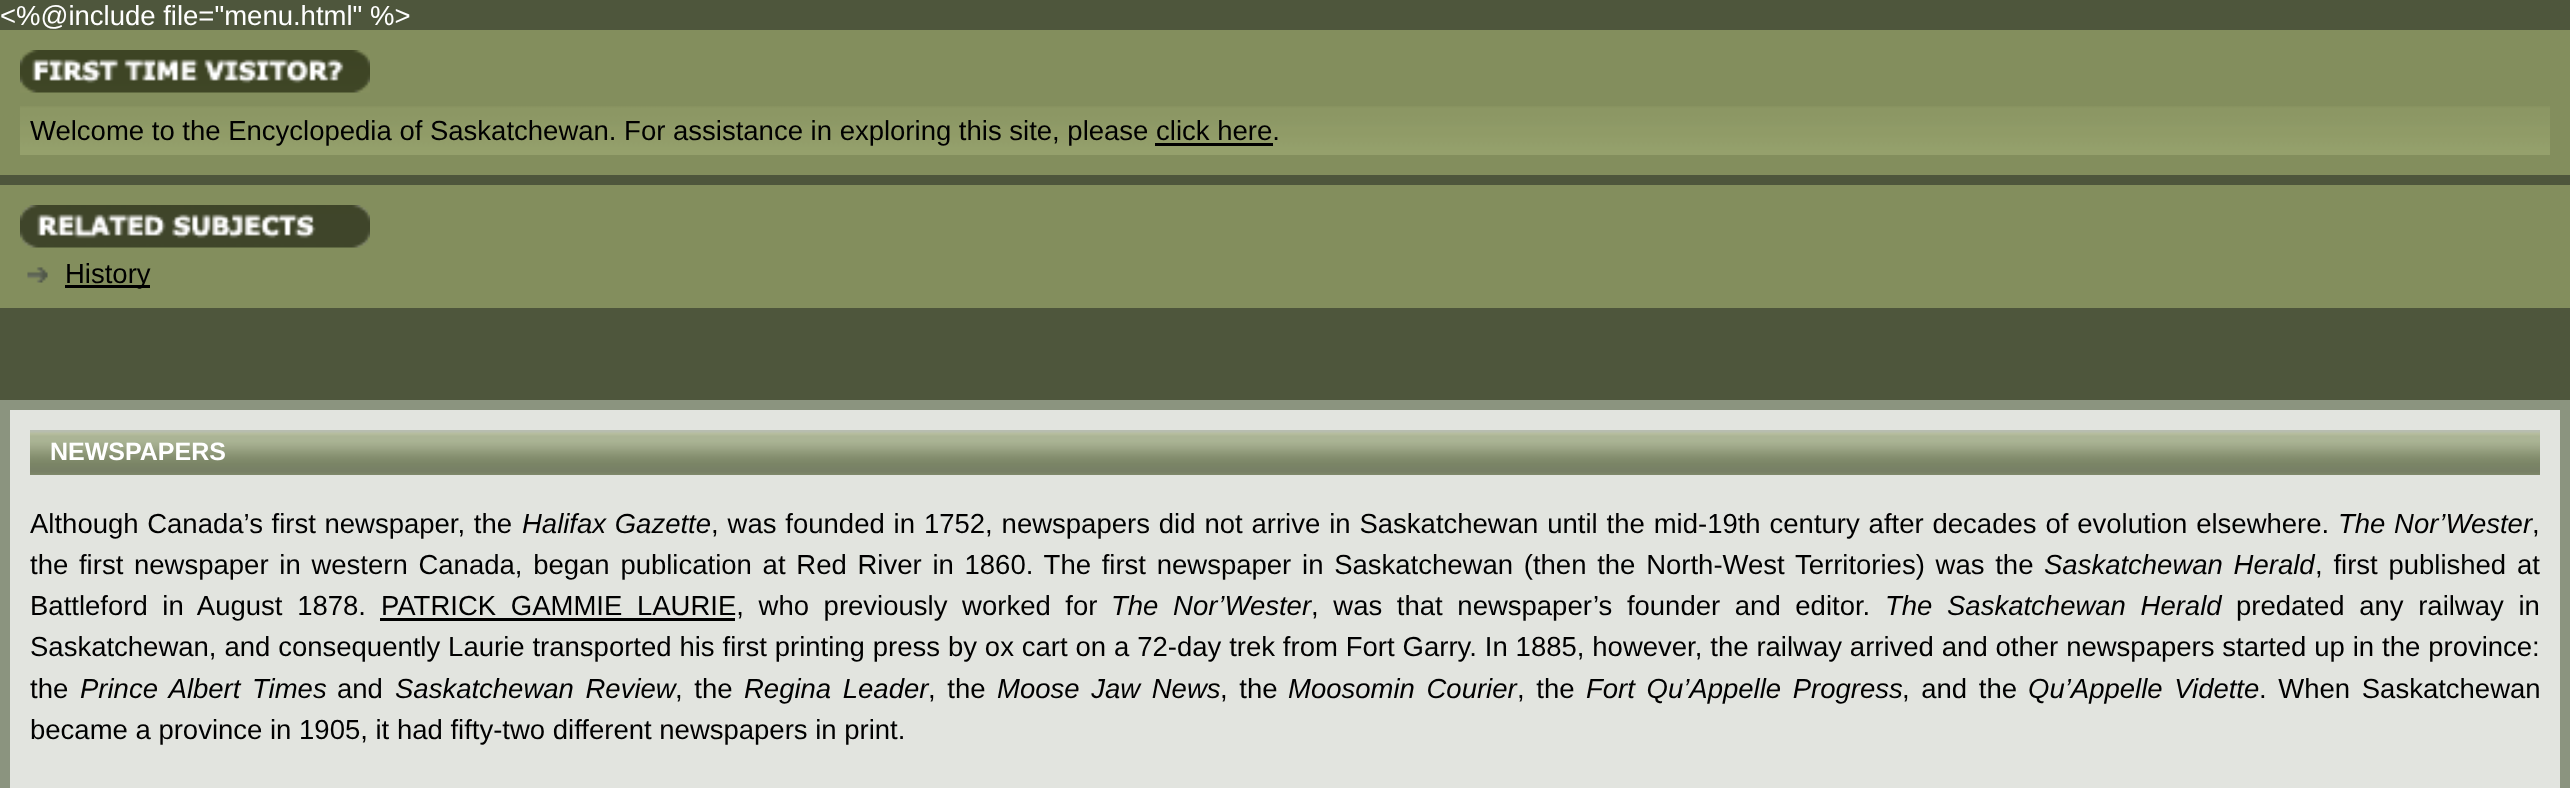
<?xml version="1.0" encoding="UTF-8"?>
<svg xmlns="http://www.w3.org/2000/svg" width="2570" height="788">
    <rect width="100%" height="100%" fill="#4E563C"/>
    <text x="0" y="25" font-family="Liberation Sans" font-size="27.5" fill="#FFFFFF">&lt;%@include file="menu.html" %&gt;</text>
    <rect x="0" y="30" width="2570" height="145" fill="#838E5D"/>
    <image x="20" y="50" width="350" height="43" href="img_01.png"/>
    <image x="20" y="106" width="2530" height="49" href="img_02.png"/>
    <text x="30" y="140" font-family="Liberation Sans" font-size="27.5" fill="#000000">Welcome to the Encyclopedia of Saskatchewan. For assistance in exploring this site, please click here.</text>
    <rect x="1155" y="143" width="118" height="3" fill="#000000"/>
    <rect x="0" y="185" width="2570" height="123" fill="#838E5D"/>
    <image x="20" y="205" width="350" height="43" href="img_03.png"/>
    <image x="27" y="267" width="21" height="16" href="img_04.png"/>
    <rect x="65" y="285" width="85" height="3" fill="#000000"/>
    <text x="65" y="283" font-family="Liberation Sans" font-size="27.5" fill="#000000">History</text>
    <rect x="0" y="400" width="2570" height="388" fill="#8B947F"/>
    <rect x="10" y="410" width="2550" height="378" fill="#E2E4DF"/>
    <image x="30" y="430" width="2510" height="45" href="img_05.png"/>
    <text x="50" y="460" font-family="Liberation Sans" font-size="25" font-weight="700" fill="#FFFFFF">NEWSPAPERS</text>
    <text x="30" y="533" word-spacing="1" font-family="Liberation Sans" font-size="27.5" fill="#000000">Although Canada’s first newspaper, the</text>
    <text x="522" y="533" word-spacing="1" font-family="Liberation Sans" font-size="27.5" font-style="italic" fill="#000000">Halifax Gazette</text>
    <text x="711" y="533" word-spacing="1.25" font-family="Liberation Sans" font-size="27.5" fill="#000000">, was founded in 1752, newspapers did not arrive in Saskatchewan until the mid-19th century after decades of evolution elsewhere.</text>
    <text x="2338" y="533" word-spacing="1" font-family="Liberation Sans" font-size="27.5" font-style="italic" fill="#000000">The Nor’Wester</text>
    <text x="2532" y="533" font-family="Liberation Sans" font-size="27.5" fill="#000000">,</text>
    <text x="30" y="574" word-spacing="3.1" font-family="Liberation Sans" font-size="27.5" fill="#000000">the first newspaper in western Canada, began publication at Red River in 1860. The first newspaper in Saskatchewan (then the North-West Territories) was the</text>
    <text x="2044" y="574" word-spacing="3.1" font-family="Liberation Sans" font-size="27.5" font-style="italic" fill="#000000">Saskatchewan Herald</text>
    <text x="2315" y="574" word-spacing="3.1" font-family="Liberation Sans" font-size="27.5" fill="#000000">, first published at</text>
    <text x="30" y="615" word-spacing="7" font-family="Liberation Sans" font-size="27.5" fill="#000000">Battleford in August 1878.</text>
    <rect x="380" y="618" width="355" height="3" fill="#000000"/>
    <text x="381" y="615" word-spacing="7" font-family="Liberation Sans" font-size="27.5" fill="#000000">PATRICK GAMMIE LAURIE, who previously worked for</text>
    <text x="1111" y="615" word-spacing="7" font-family="Liberation Sans" font-size="27.5" font-style="italic" fill="#000000">The Nor’Wester</text>
    <text x="1311" y="615" word-spacing="7" font-family="Liberation Sans" font-size="27.5" fill="#000000">, was that newspaper’s founder and editor.</text>
    <text x="1885" y="615" word-spacing="7" font-family="Liberation Sans" font-size="27.5" font-style="italic" fill="#000000">The Saskatchewan Herald</text>
    <text x="2236" y="615" word-spacing="7" font-family="Liberation Sans" font-size="27.5" fill="#000000">predated any railway in</text>
    <text font-family="Liberation Sans" font-size="27.5" fill="#000000">
        <tspan x="30" y="656" word-spacing="0.25">Saskatchewan, and consequently Laurie transported his first printing press by ox cart on a 72-day trek from Fort Garry. In 1885, however, the railway arrived and other newspapers started up in the province:</tspan>
        <tspan x="30" y="698">the</tspan>
    </text>
    <text x="80" y="698" word-spacing="4" font-family="Liberation Sans" font-size="27.5" font-style="italic" fill="#000000">Prince Albert Times</text>
    <text x="337" y="698" font-family="Liberation Sans" font-size="27.5" fill="#000000">and</text>
    <text x="395" y="698" word-spacing="4" font-family="Liberation Sans" font-size="27.5" font-style="italic" fill="#000000">Saskatchewan Review</text>
    <text x="675" y="698" word-spacing="4" font-family="Liberation Sans" font-size="27.5" fill="#000000">, the</text>
    <text x="744" y="698" word-spacing="4" font-family="Liberation Sans" font-size="27.5" font-style="italic" fill="#000000">Regina Leader</text>
    <text x="928" y="698" word-spacing="4" font-family="Liberation Sans" font-size="27.5" fill="#000000">, the</text>
    <text x="997" y="698" word-spacing="4" font-family="Liberation Sans" font-size="27.5" font-style="italic" fill="#000000">Moose Jaw News</text>
    <text x="1220" y="698" word-spacing="4" font-family="Liberation Sans" font-size="27.5" fill="#000000">, the</text>
    <text x="1288" y="698" word-spacing="4" font-family="Liberation Sans" font-size="27.5" font-style="italic" fill="#000000">Moosomin Courier</text>
    <text x="1517" y="698" word-spacing="4" font-family="Liberation Sans" font-size="27.5" fill="#000000">, the</text>
    <text x="1586" y="698" word-spacing="4" font-family="Liberation Sans" font-size="27.5" font-style="italic" fill="#000000">Fort Qu’Appelle Progress</text>
    <text x="1902" y="698" word-spacing="4" font-family="Liberation Sans" font-size="27.5" fill="#000000">, and the</text>
    <text x="2028" y="698" word-spacing="4" font-family="Liberation Sans" font-size="27.5" font-style="italic" fill="#000000">Qu’Appelle Vidette</text>
    <text x="2259" y="698" word-spacing="4" font-family="Liberation Sans" font-size="27.5" fill="#000000">. When Saskatchewan</text>
    <text x="30" y="739" font-family="Liberation Sans" font-size="27.5" fill="#000000">became a province in 1905, it had fifty-two different newspapers in print.</text>
</svg>
